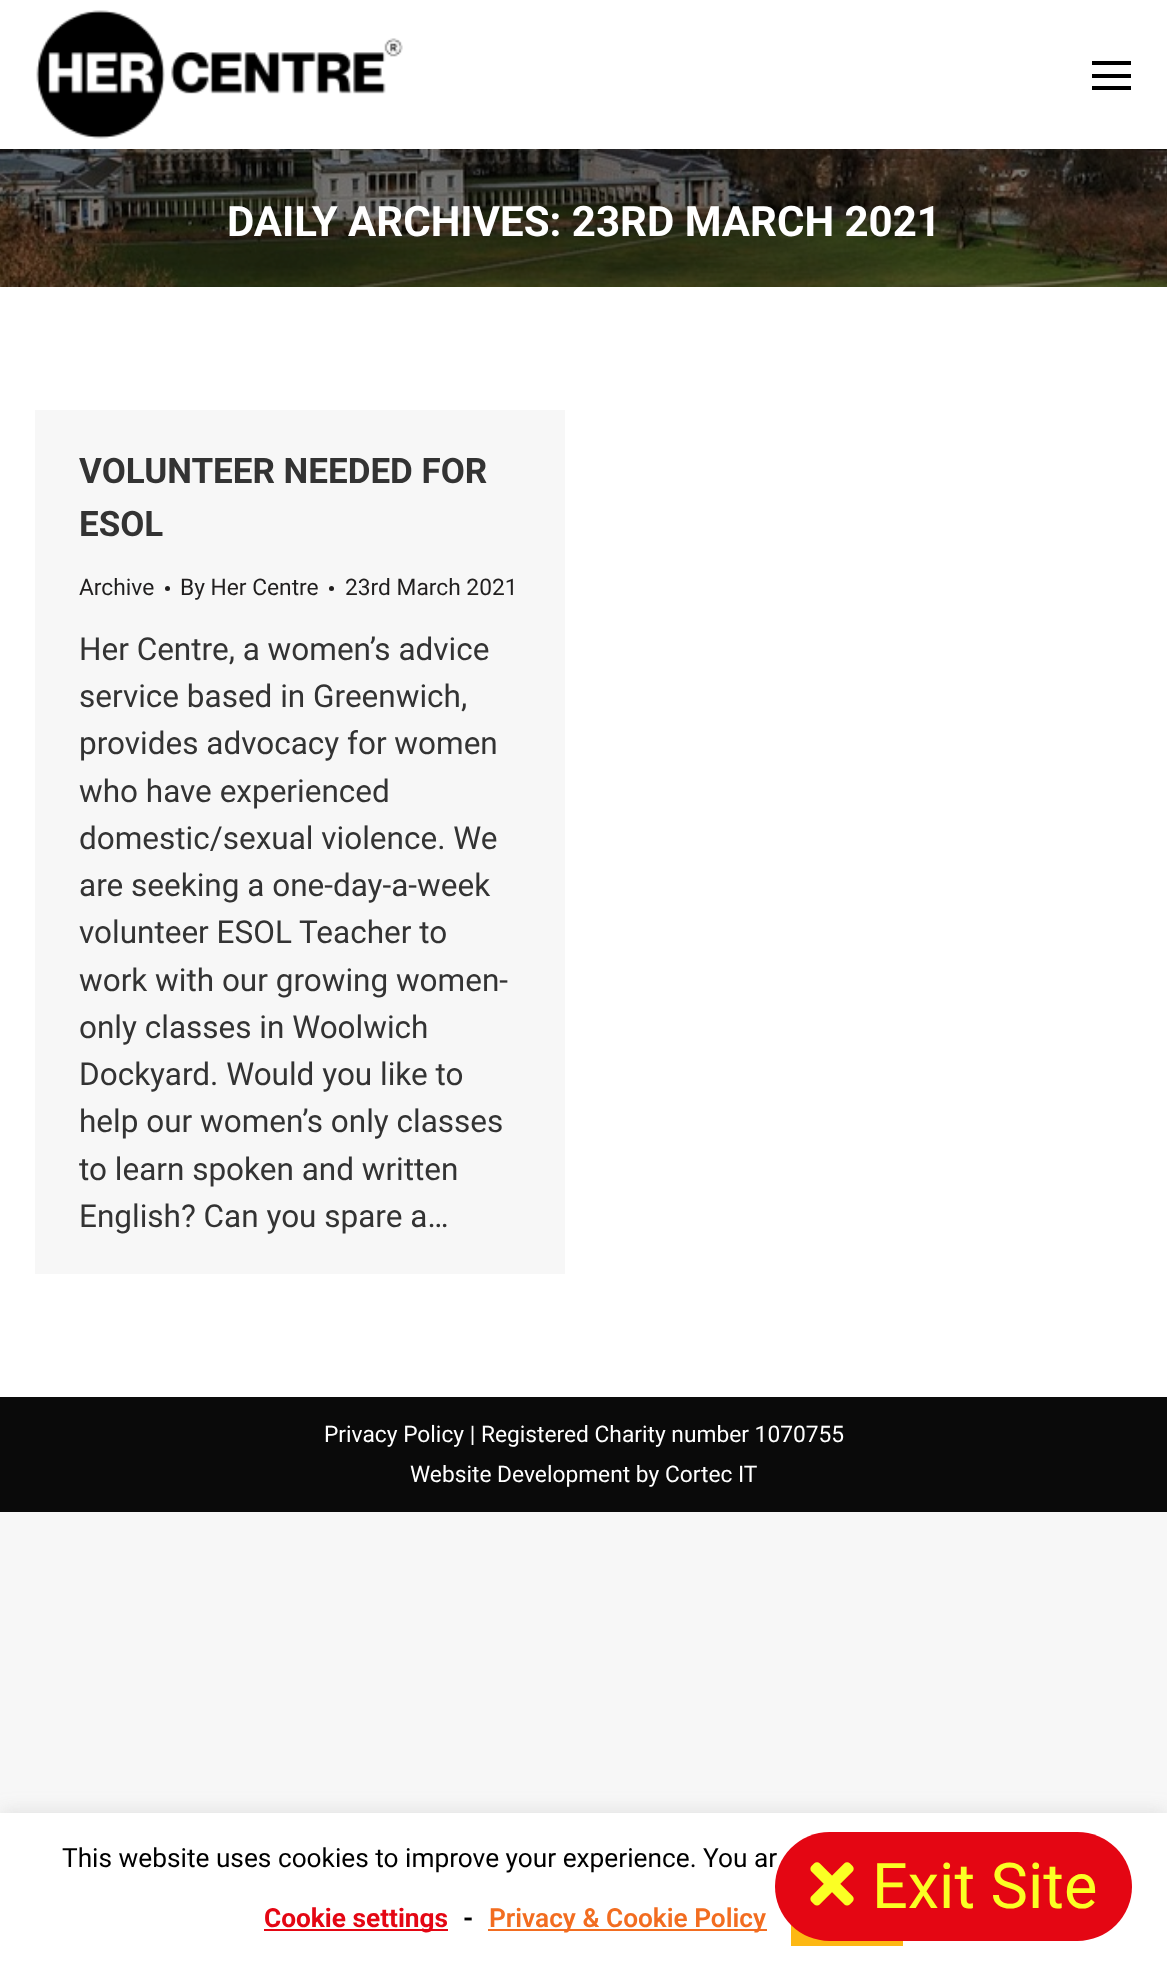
<?xml version="1.0" encoding="UTF-8"?>
<svg xmlns="http://www.w3.org/2000/svg" width="1167" height="1975">
    <defs>
        <filter id="blur1" x="-50%" y="-200%" width="200%" height="500%"><feGaussianBlur stdDeviation="13"/></filter>
        <filter id="blur2" x="-50%" y="-200%" width="200%" height="500%"><feGaussianBlur stdDeviation="9"/></filter>
    </defs>
    <rect width="100%" height="100%" fill="#F7F7F7"/>
    <rect x="0" y="287" width="1167" height="1110" fill="#FFFFFF"/>
    <image x="0" y="149" width="1167" height="138" href="img_02.png"/>
    <rect x="-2" y="-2" width="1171" height="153" fill="#000000" fill-opacity="0.07" filter="url(#blur1)"/>
    <rect x="0" y="0" width="1167" height="149" fill="#FFFFFF"/>
    <image x="36" y="10" width="367" height="129" href="img_01.png"/>
    <rect x="1092" y="74" width="39" height="4" fill="#000000"/>
    <rect x="1092" y="61" width="39" height="4" fill="#000000"/>
    <rect x="1092" y="86" width="39" height="4" fill="#000000"/>
    <text x="227" y="236" font-family="Roboto" font-size="42" font-weight="700" fill="#FFFFFF">DAILY ARCHIVES: 23RD MARCH 2021</text>
    <rect x="35" y="410" width="530" height="864" fill="#F7F7F7"/>
    <text font-family="Roboto" font-size="35" font-weight="700" fill="#333333">
        <tspan x="79" y="483">VOLUNTEER NEEDED FOR</tspan>
        <tspan x="79" y="536">ESOL</tspan>
    </text>
    <text x="79" y="595" font-family="Roboto" font-size="22.75" fill="#211F1F">Archive</text>
    <circle cx="167.5" cy="588.5" r="2.5" fill="#211F1F"/>
    <text x="180" y="595" font-family="Roboto" font-size="22.75" fill="#211F1F">By Her Centre</text>
    <circle cx="331.5" cy="588.5" r="2.5" fill="#211F1F"/>
    <text x="345" y="595" font-family="Roboto" font-size="22.75" fill="#211F1F">23rd March 2021</text>
    <text font-family="Roboto" font-size="31.5" fill="#333333">
        <tspan x="79" y="660">Her Centre, a women’s advice</tspan>
        <tspan x="79" y="707">service based in Greenwich,</tspan>
        <tspan x="79" y="754">provides advocacy for women</tspan>
        <tspan x="79" y="802">who have experienced</tspan>
        <tspan x="79" y="849">domestic/sexual violence. We</tspan>
        <tspan x="79" y="896">are seeking a one-day-a-week</tspan>
        <tspan x="79" y="943">volunteer ESOL Teacher to</tspan>
        <tspan x="79" y="991">work with our growing women-</tspan>
        <tspan x="79" y="1038">only classes in Woolwich</tspan>
        <tspan x="79" y="1085">Dockyard. Would you like to</tspan>
        <tspan x="79" y="1132">help our women’s only classes</tspan>
        <tspan x="79" y="1180">to learn spoken and written</tspan>
        <tspan x="79" y="1227">English? Can you spare a…</tspan>
    </text>
    <rect x="0" y="1397" width="1167" height="115" fill="#0A0A0A"/>
    <text x="324" y="1442" font-family="Roboto" font-size="22.75" fill="#FFFFFF">Privacy Policy | Registered Charity number 1070755</text>
    <text x="410" y="1482" font-family="Roboto" font-size="22.75" fill="#FFFFFF">Website Development by Cortec IT</text>
    <rect x="0" y="1811" width="1167" height="163" fill="#ACABAB" fill-opacity="0.3" filter="url(#blur2)"/>
    <rect x="0" y="1813" width="1167" height="162" fill="#FFFFFF"/>
    <text x="62" y="1867" font-family="Roboto" font-size="26.25" fill="#000000">This website uses cookies to improve your experience. You ar</text>
    <rect x="264" y="1929" width="184" height="2" fill="#E40613"/>
    <text x="264" y="1927" font-family="Roboto" font-size="26.25" font-weight="700" fill="#E40613">Cookie settings</text>
    <text x="463" y="1927" font-family="Roboto" font-size="26.25" font-weight="700" fill="#000000">-</text>
    <rect x="488" y="1929" width="279" height="2" fill="#F26D20"/>
    <text x="489" y="1927" font-family="Roboto" font-size="26.25" font-weight="600" fill="#F26D20">Privacy &amp; Cookie Policy</text>
    <rect x="791" y="1925" width="112" height="21" fill="#FDB813"/>
    <rect x="775" y="1832" width="357" height="109" rx="54.5" fill="#E40613"/>
    <image x="810" y="1862" width="44" height="44" href="img_03.png"/>
    <text x="872" y="1908" font-family="Roboto" font-size="63" fill="#FBFF24">Exit Site</text>
</svg>
